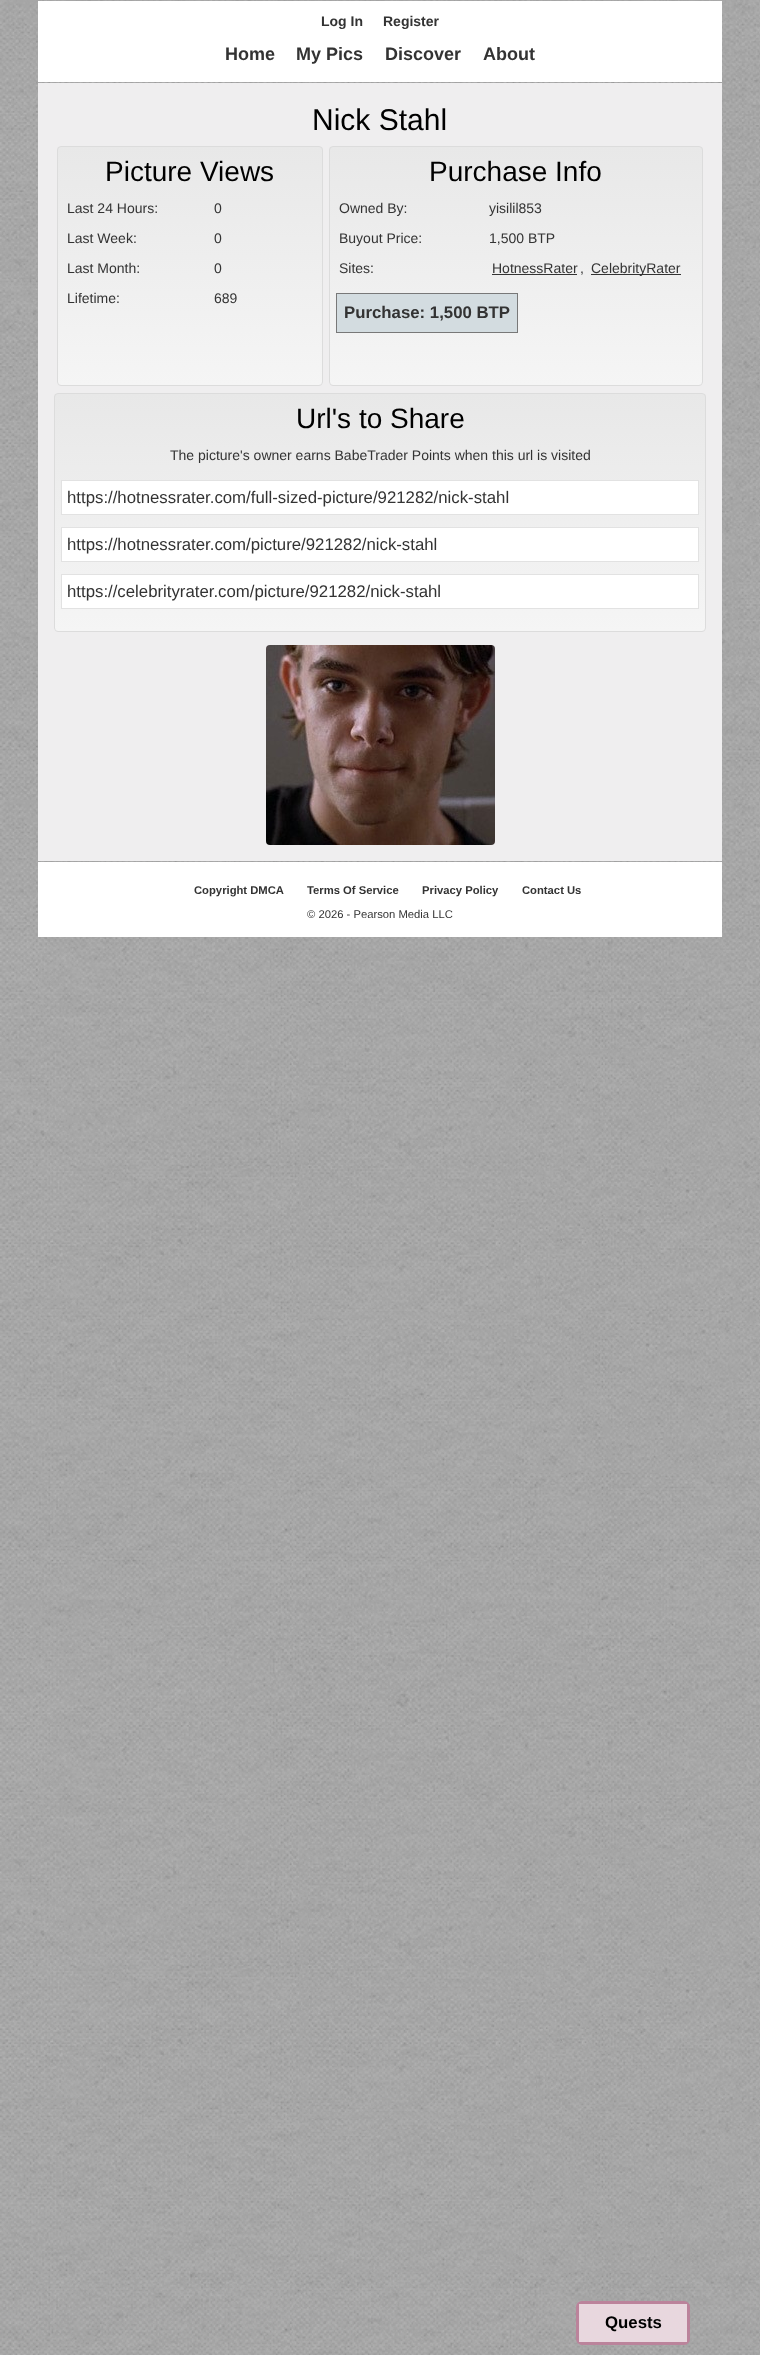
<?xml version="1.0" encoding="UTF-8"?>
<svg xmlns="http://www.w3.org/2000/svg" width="760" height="2355">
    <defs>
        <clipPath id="clip1"><rect x="57" y="146" width="266" height="240" rx="4"/></clipPath>
        <linearGradient id="g1" gradientUnits="userSpaceOnUse" x1="190" y1="147" x2="190" y2="385"><stop offset="0" stop-color="#E8E8E8"/><stop offset="1" stop-color="#F5F5F5"/></linearGradient>
        <clipPath id="clip2"><rect x="329" y="146" width="374" height="240" rx="4"/></clipPath>
        <linearGradient id="g2" gradientUnits="userSpaceOnUse" x1="516" y1="147" x2="516" y2="385"><stop offset="0" stop-color="#E8E8E8"/><stop offset="1" stop-color="#F5F5F5"/></linearGradient>
        <clipPath id="clip3"><rect x="54" y="393" width="652" height="239" rx="4"/></clipPath>
        <linearGradient id="g3" gradientUnits="userSpaceOnUse" x1="380" y1="394" x2="380" y2="631"><stop offset="0" stop-color="#E8E8E8"/><stop offset="1" stop-color="#F5F5F5"/></linearGradient>
    </defs>
    <rect width="100%" height="100%" fill="#FFFFFF"/>
    <image x="0" y="0" width="760" height="2355" href="img_01.png"/>
    <rect x="38" y="1" width="684" height="81" fill="#FFFFFF"/>
    <text x="321" y="26" font-family="Liberation Sans" font-size="14" font-weight="700" fill="#333333">Log In</text>
    <text x="383" y="26" font-family="Liberation Sans" font-size="14" font-weight="700" fill="#333333">Register</text>
    <text x="225" y="60" font-family="Liberation Sans" font-size="18" font-weight="700" fill="#333333">Home</text>
    <text x="296" y="60" font-family="Liberation Sans" font-size="18" font-weight="700" fill="#333333">My Pics</text>
    <text x="385" y="60" font-family="Liberation Sans" font-size="18" font-weight="700" fill="#333333">Discover</text>
    <text x="483" y="60" font-family="Liberation Sans" font-size="18" font-weight="700" fill="#333333">About</text>
    <rect x="38" y="83" width="684" height="778" fill="#EFEEEF"/>
    <text x="312" y="130" font-family="Liberation Sans" font-size="30" fill="#000000">Nick Stahl</text>
    <g clip-path="url(#clip1)">
        <rect x="57" y="147" width="266" height="238" fill="url(#g1)"/>
    </g>
    <rect x="57.5" y="146.5" width="265" height="239" rx="3.5" fill="none" stroke="#DCDCDC"/>
    <text x="105" y="181" font-family="Liberation Sans" font-size="28" fill="#000000">Picture Views</text>
    <text x="67" y="213" font-family="Liberation Sans" font-size="14" fill="#333333">Last 24 Hours:</text>
    <text x="214" y="213" font-family="Liberation Sans" font-size="14" fill="#333333">0</text>
    <text x="67" y="243" font-family="Liberation Sans" font-size="14" fill="#333333">Last Week:</text>
    <text x="214" y="243" font-family="Liberation Sans" font-size="14" fill="#333333">0</text>
    <text x="67" y="273" font-family="Liberation Sans" font-size="14" fill="#333333">Last Month:</text>
    <text x="214" y="273" font-family="Liberation Sans" font-size="14" fill="#333333">0</text>
    <text x="67" y="303" font-family="Liberation Sans" font-size="14" fill="#333333">Lifetime:</text>
    <text x="214" y="303" font-family="Liberation Sans" font-size="14" fill="#333333">689</text>
    <g clip-path="url(#clip2)">
        <rect x="329" y="147" width="374" height="238" fill="url(#g2)"/>
    </g>
    <rect x="329.5" y="146.5" width="373" height="239" rx="3.5" fill="none" stroke="#DCDCDC"/>
    <text x="429" y="181" font-family="Liberation Sans" font-size="28" fill="#000000">Purchase Info</text>
    <text x="339" y="213" font-family="Liberation Sans" font-size="14" fill="#333333">Owned By:</text>
    <text x="489" y="213" font-family="Liberation Sans" font-size="14" fill="#333333">yisilil853</text>
    <text x="339" y="243" font-family="Liberation Sans" font-size="14" fill="#333333">Buyout Price:</text>
    <text x="489" y="243" font-family="Liberation Sans" font-size="14" fill="#333333">1,500 BTP</text>
    <text x="339" y="273" font-family="Liberation Sans" font-size="14" fill="#333333">Sites:</text>
    <text x="492" y="273" font-family="Liberation Sans" font-size="14" fill="#333333">HotnessRater</text>
    <rect x="492" y="274" width="85" height="1" fill="#333333"/>
    <text x="580" y="273" font-family="Liberation Sans" font-size="14" fill="#333333">,</text>
    <rect x="591" y="274" width="90" height="1" fill="#333333"/>
    <text x="591" y="273" font-family="Liberation Sans" font-size="14" fill="#333333">CelebrityRater</text>
    <rect x="336.5" y="293.5" width="181" height="39" fill="#D3DCE0" stroke="#787878"/>
    <text x="344" y="318" font-family="Liberation Sans" font-size="16.8" font-weight="700" fill="#333333">Purchase: 1,500 BTP</text>
    <g clip-path="url(#clip3)">
        <rect x="54" y="394" width="652" height="237" fill="url(#g3)"/>
    </g>
    <rect x="54.5" y="393.5" width="651" height="238" rx="3.5" fill="none" stroke="#DCDCDC"/>
    <text x="296" y="428" font-family="Liberation Sans" font-size="28" fill="#000000">Url's to Share</text>
    <text x="170" y="460" font-family="Liberation Sans" font-size="14" fill="#333333">The picture's owner earns BabeTrader Points when this url is visited</text>
    <rect x="61.5" y="480.5" width="637" height="34" fill="#FFFFFF" stroke="#E2E2E2"/>
    <text x="67" y="503" font-family="Liberation Sans" font-size="16.8" fill="#333333">https://hotnessrater.com/full-sized-picture/921282/nick-stahl</text>
    <rect x="61.5" y="527.5" width="637" height="34" fill="#FFFFFF" stroke="#E2E2E2"/>
    <text x="67" y="550" font-family="Liberation Sans" font-size="16.8" fill="#333333">https://hotnessrater.com/picture/921282/nick-stahl</text>
    <rect x="61.5" y="574.5" width="637" height="34" fill="#FFFFFF" stroke="#E2E2E2"/>
    <text x="67" y="597" font-family="Liberation Sans" font-size="16.8" fill="#333333">https://celebrityrater.com/picture/921282/nick-stahl</text>
    <image x="266" y="645" width="229" height="200" href="img_02.png"/>
    <rect x="38" y="862" width="684" height="75" fill="#FFFFFF"/>
    <text x="194" y="894" font-family="Liberation Sans" font-size="11.25" font-weight="700" fill="#333333">Copyright DMCA</text>
    <text x="307" y="894" font-family="Liberation Sans" font-size="11.25" font-weight="700" fill="#333333">Terms Of Service</text>
    <text x="422" y="894" font-family="Liberation Sans" font-size="11.25" font-weight="700" fill="#333333">Privacy Policy</text>
    <text x="522" y="894" font-family="Liberation Sans" font-size="11.25" font-weight="700" fill="#333333">Contact Us</text>
    <text x="307" y="918" font-family="Liberation Sans" font-size="11.25" fill="#333333">© 2026 - Pearson Media LLC</text>
    <rect x="577.5" y="2302.5" width="111" height="41" rx="4.5" fill="none" stroke="#BB839B" stroke-width="3"/>
    <rect x="579" y="2304" width="108" height="38" fill="#E8D7DE"/>
    <text x="605" y="2328" font-family="Liberation Sans" font-size="16.8" font-weight="700" fill="#000000">Quests</text>
</svg>
